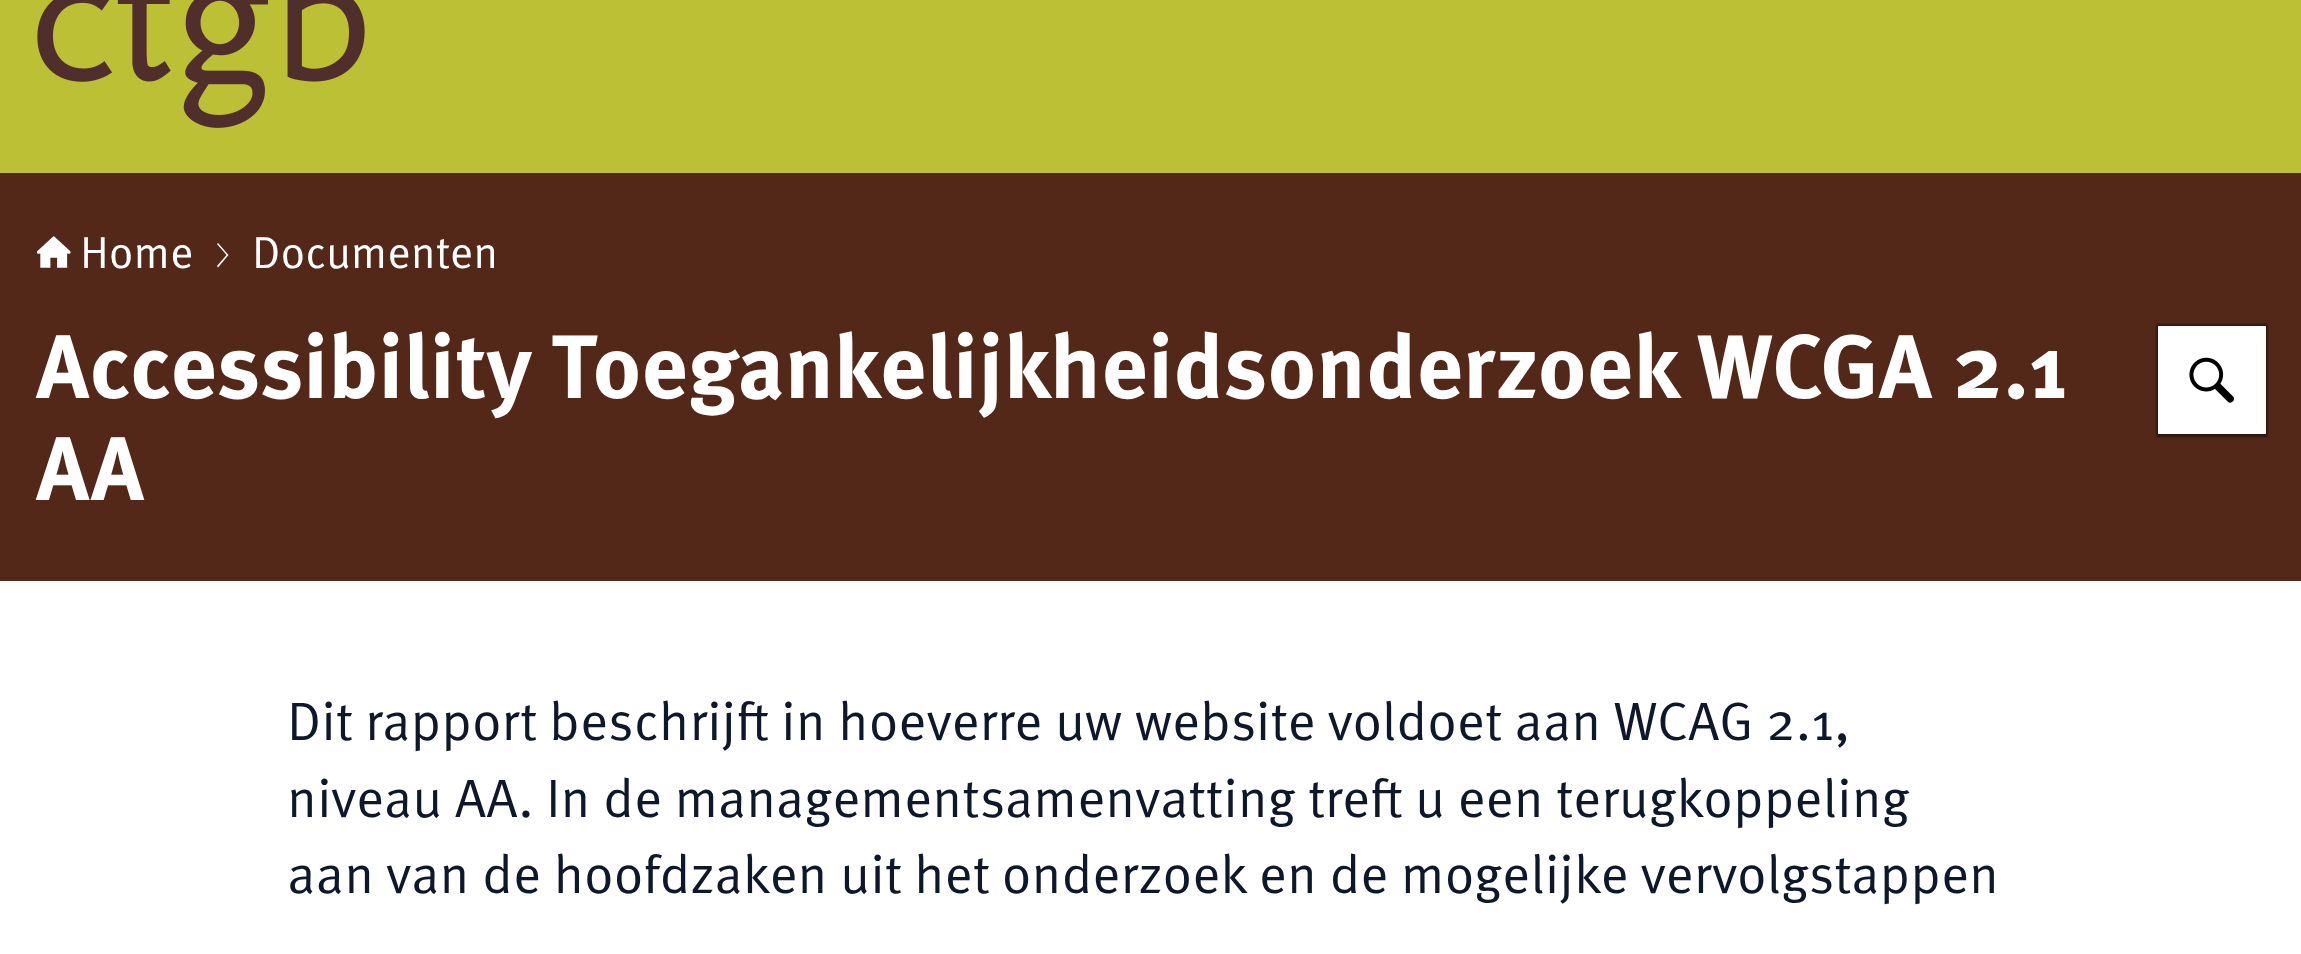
<?xml version="1.0" encoding="UTF-8"?>
<svg xmlns="http://www.w3.org/2000/svg" width="2301" height="954">
    <defs>
        <filter id="blur1" x="-50%" y="-200%" width="200%" height="500%"><feGaussianBlur stdDeviation="1"/></filter>
    </defs>
    <rect width="100%" height="100%" fill="#FFFFFF"/>
    <rect x="0" y="0" width="2301" height="173" fill="#BBC035"/>
    <image x="37" y="0" width="328" height="128" href="img_01.png"/>
    <rect x="0" y="173" width="2301" height="408" fill="#532819"/>
    <image x="36" y="236" width="35" height="32" href="img_02.png"/>
    <text x="80" y="268" font-family="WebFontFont" font-size="45" fill="#FFFFFF">Home</text>
    <path d="M 218 267.5 L 217 266 L 226.5 255 L 217 244 L 218 243 L 228.5 255 Z" fill="#FFFFFF"/>
    <text x="252" y="268" font-family="WebFontFont" font-size="45" fill="#FFFFFF">Documenten</text>
    <text font-family="WebFontFont" font-size="90" font-weight="700" fill="#FFFFFF">
        <tspan x="36" y="398">Accessibility Toegankelijkheidsonderzoek WCGA 2.1</tspan>
        <tspan x="36" y="500">AA</tspan>
    </text>
    <rect x="2156" y="324" width="112" height="113" fill="#000000" fill-opacity="0.44" filter="url(#blur1)"/>
    <rect x="2158" y="326" width="108" height="108" fill="#FFFFFF"/>
    <image x="2189" y="357" width="45" height="46" href="img_03.png"/>
    <text font-family="WebFontFont" font-size="54" fill="#0F172A">
        <tspan x="287" y="740">Dit rapport beschrijft in hoeverre uw website voldoet aan WCAG 2.1,</tspan>
        <tspan x="287" y="817">niveau AA. In de managementsamenvatting treft u een terugkoppeling</tspan>
        <tspan x="287" y="893">aan van de hoofdzaken uit het onderzoek en de mogelijke vervolgstappen</tspan>
    </text>
</svg>
